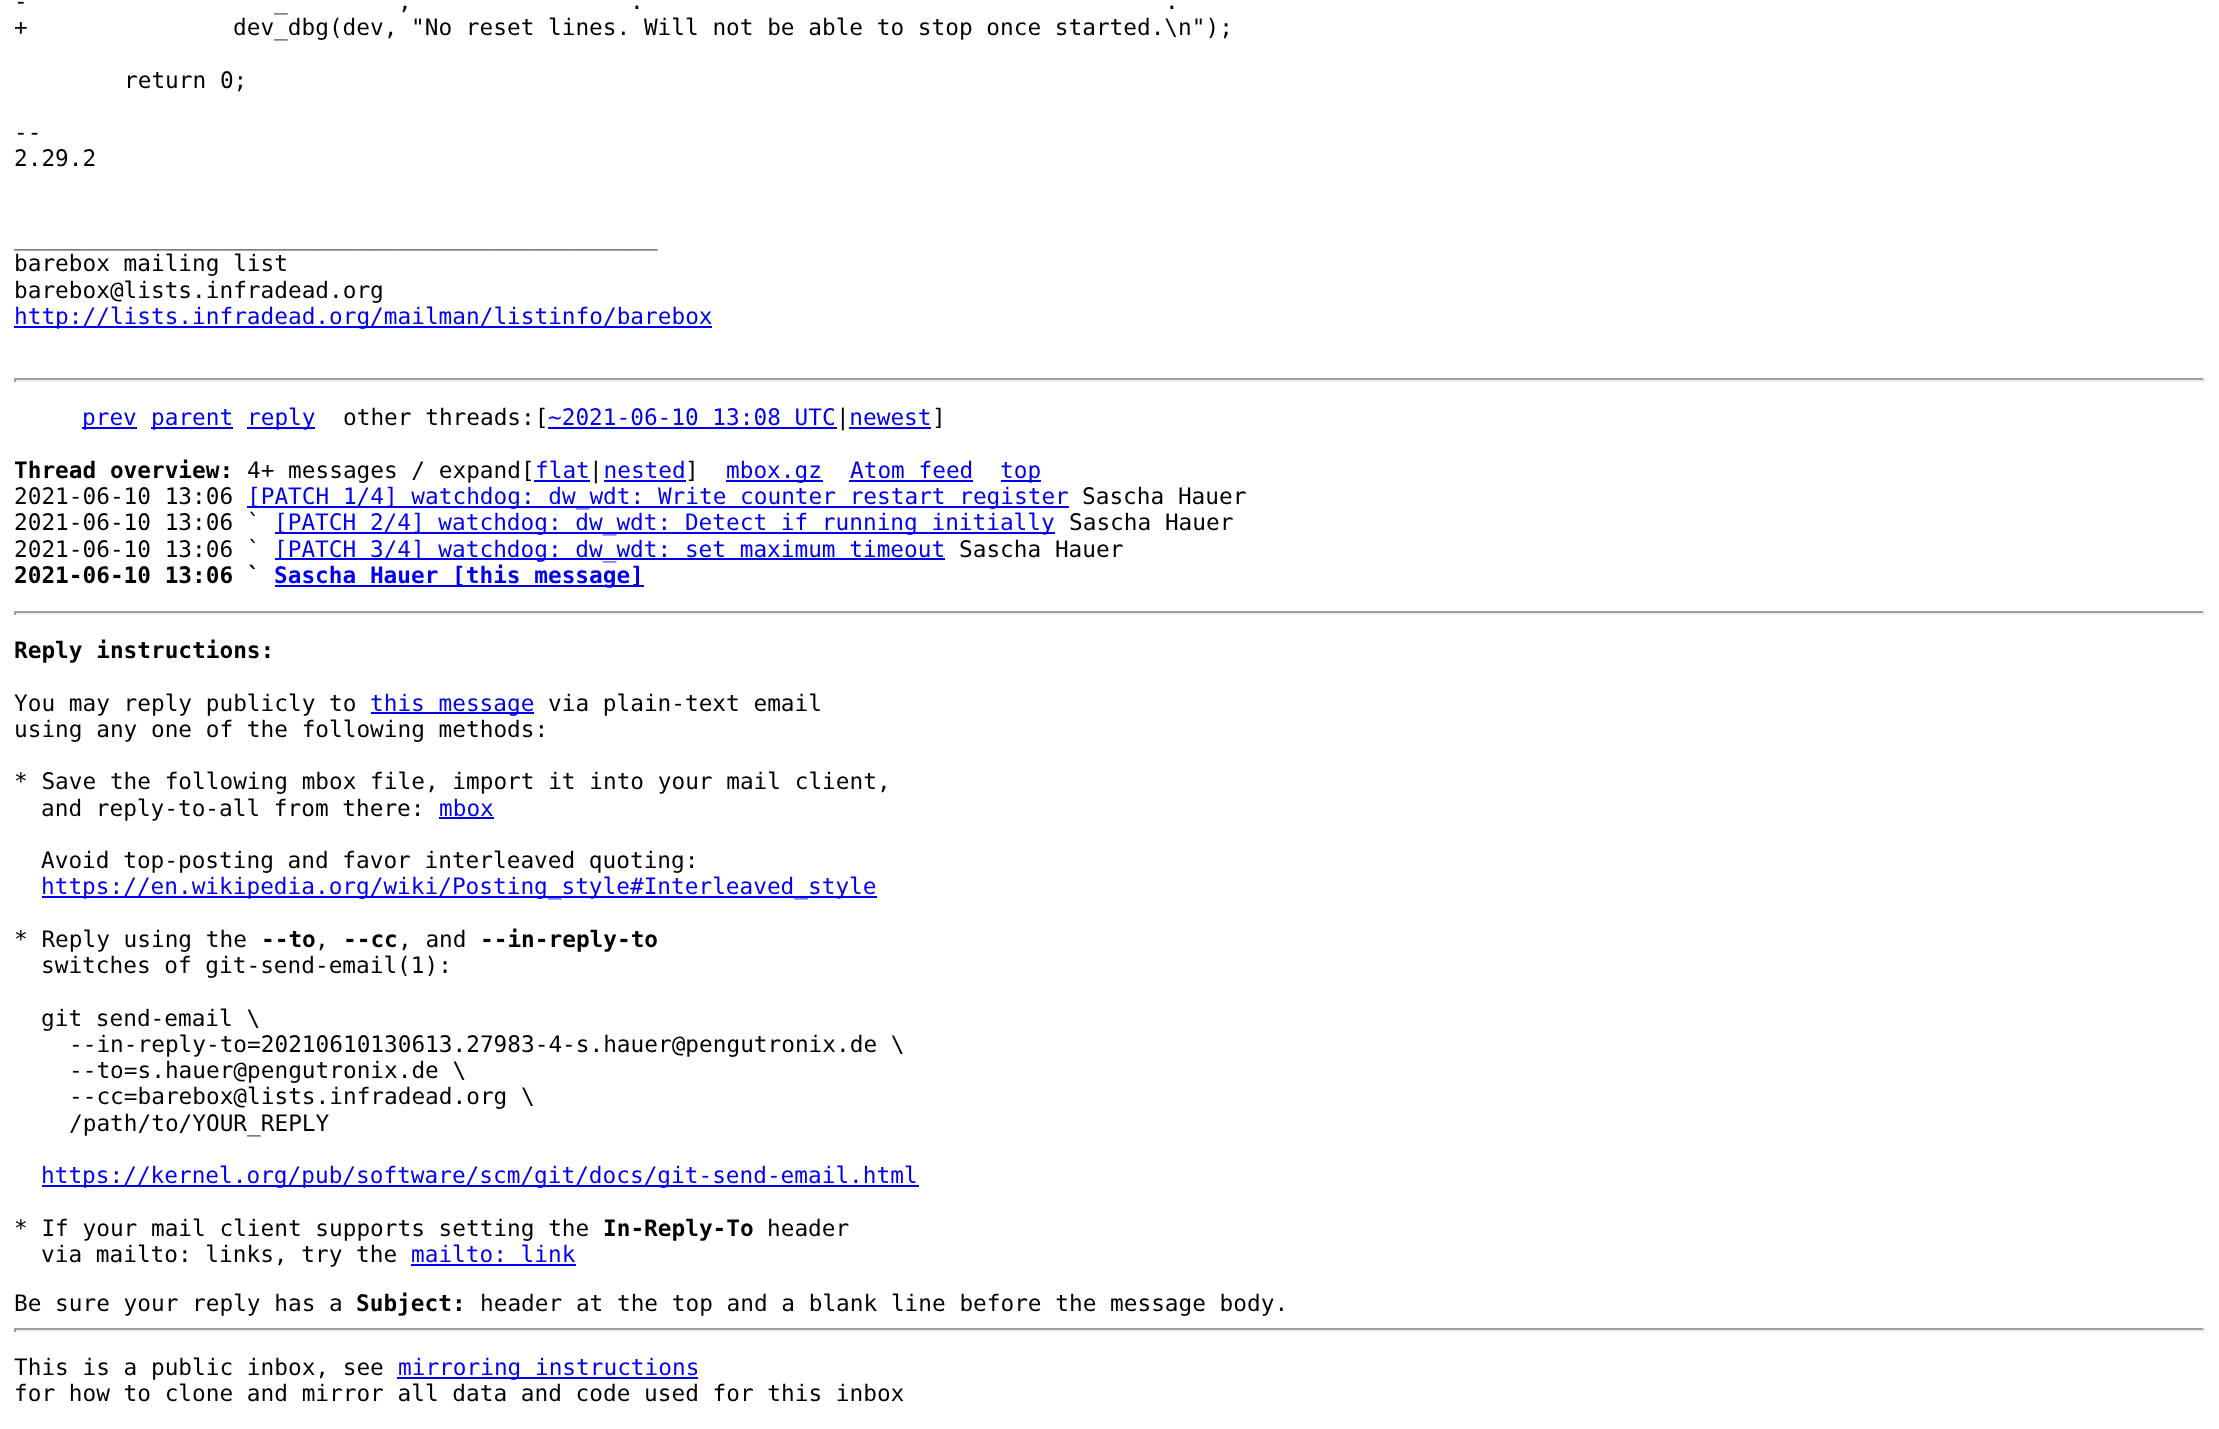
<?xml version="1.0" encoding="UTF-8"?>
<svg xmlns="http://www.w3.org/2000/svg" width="2219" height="1429">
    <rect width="100%" height="100%" fill="#FFFFFF"/>
    <text x="14" y="9" font-family="DejaVu Sans Mono" font-size="22.75" fill="#000000">-</text>
    <text x="398" y="9" font-family="DejaVu Sans Mono" font-size="22.75" fill="#000000">,</text>
    <text x="630" y="9" font-family="DejaVu Sans Mono" font-size="22.75" fill="#000000">.</text>
    <text x="1165" y="9" font-family="DejaVu Sans Mono" font-size="22.75" fill="#000000">.</text>
    <text x="274" y="9" font-family="DejaVu Sans Mono" font-size="22.75" fill="#000000">_</text>
    <text x="14" y="35" font-family="DejaVu Sans Mono" font-size="22.75" fill="#000000">+</text>
    <text x="233" y="35" font-family="DejaVu Sans Mono" font-size="22.75" fill="#000000">dev_dbg(dev, "No reset lines. Will not be able to stop once started.\n");</text>
    <text x="124" y="88" font-family="DejaVu Sans Mono" font-size="22.75" fill="#000000">return 0;</text>
    <text font-family="DejaVu Sans Mono" font-size="22.75" fill="#000000">
        <tspan x="14" y="140">--</tspan>
        <tspan x="14" y="166">2.29.2</tspan>
    </text>
    <text font-family="DejaVu Sans Mono" font-size="22.75" fill="#000000">
        <tspan x="14" y="245">_______________________________________________</tspan>
        <tspan x="14" y="271">barebox mailing list</tspan>
        <tspan x="14" y="298">barebox@lists.infradead.org</tspan>
    </text>
    <rect x="14" y="326" width="698" height="2" fill="#0000EE"/>
    <text x="14" y="324" font-family="DejaVu Sans Mono" font-size="22.75" fill="#0000EE">http://lists.infradead.org/mailman/listinfo/barebox</text>
    <rect x="14" y="378" width="2191" height="2" fill="#9F9F9F"/>
    <rect x="2203" y="378" width="2" height="4" fill="#EEEEEE"/>
    <rect x="14" y="380" width="2191" height="2" fill="#EEEEEE"/>
    <rect x="14" y="378" width="2" height="4" fill="#9F9F9F"/>
    <rect x="247" y="427" width="68" height="2" fill="#0000EE"/>
    <text x="247" y="425" font-family="DejaVu Sans Mono" font-size="22.75" fill="#0000EE">reply</text>
    <text x="343" y="425" font-family="DejaVu Sans Mono" font-size="22.75" fill="#000000">other threads:[</text>
    <text x="548" y="425" font-family="DejaVu Sans Mono" font-size="22.75" fill="#0000EE">~2021-06-10 13:08 UTC newest</text>
    <text x="836" y="425" font-family="DejaVu Sans Mono" font-size="22.75" fill="#000000">|</text>
    <text x="932" y="425" font-family="DejaVu Sans Mono" font-size="22.75" fill="#000000">]</text>
    <rect x="82" y="427" width="55" height="2" fill="#0000EE"/>
    <text x="82" y="425" font-family="DejaVu Sans Mono" font-size="22.75" fill="#0000EE">prev</text>
    <rect x="151" y="427" width="82" height="2" fill="#0000EE"/>
    <text x="151" y="425" font-family="DejaVu Sans Mono" font-size="22.75" fill="#0000EE">parent</text>
    <rect x="548" y="427" width="289" height="2" fill="#0000EE"/>
    <rect x="849" y="427" width="82" height="2" fill="#0000EE"/>
    <text x="14" y="478" font-family="DejaVu Sans Mono" font-size="22.75" font-weight="700" fill="#000000">Thread overview:</text>
    <text x="247" y="478" font-family="DejaVu Sans Mono" font-size="22.75" fill="#000000">4+ messages / expand[</text>
    <text x="535" y="478" font-family="DejaVu Sans Mono" font-size="22.75" fill="#0000EE">flat nested</text>
    <rect x="534" y="480" width="56" height="2" fill="#0000EE"/>
    <text x="589" y="478" font-family="DejaVu Sans Mono" font-size="22.75" fill="#000000">|</text>
    <rect x="604" y="480" width="82" height="2" fill="#0000EE"/>
    <text x="685" y="478" font-family="DejaVu Sans Mono" font-size="22.75" fill="#000000">]</text>
    <rect x="726" y="480" width="97" height="2" fill="#0000EE"/>
    <text x="726" y="478" font-family="DejaVu Sans Mono" font-size="22.75" fill="#0000EE">mbox.gz</text>
    <text x="850" y="478" font-family="DejaVu Sans Mono" font-size="22.75" fill="#0000EE">Atom feed</text>
    <rect x="849" y="480" width="124" height="2" fill="#0000EE"/>
    <rect x="1001" y="480" width="40" height="2" fill="#0000EE"/>
    <text x="1000" y="478" font-family="DejaVu Sans Mono" font-size="22.75" fill="#0000EE">top</text>
    <text x="14" y="504" font-family="DejaVu Sans Mono" font-size="22.75" fill="#000000">2021-06-10 13:06</text>
    <rect x="247" y="506" width="822" height="2" fill="#0000EE"/>
    <text x="247" y="504" font-family="DejaVu Sans Mono" font-size="22.75" fill="#0000EE">[PATCH 1/4] watchdog: dw_wdt: Write counter restart register</text>
    <text x="1082" y="504" font-family="DejaVu Sans Mono" font-size="22.75" fill="#000000">Sascha Hauer</text>
    <text x="14" y="530" font-family="DejaVu Sans Mono" font-size="22.75" fill="#000000">2021-06-10 13:06 `</text>
    <rect x="275" y="532" width="780" height="2" fill="#0000EE"/>
    <text x="274" y="530" font-family="DejaVu Sans Mono" font-size="22.75" fill="#0000EE">[PATCH 2/4] watchdog: dw_wdt: Detect if running initially</text>
    <text x="1069" y="530" font-family="DejaVu Sans Mono" font-size="22.75" fill="#000000">Sascha Hauer</text>
    <text x="14" y="557" font-family="DejaVu Sans Mono" font-size="22.75" fill="#000000">2021-06-10 13:06 `</text>
    <rect x="275" y="558" width="670" height="2" fill="#0000EE"/>
    <text x="274" y="557" font-family="DejaVu Sans Mono" font-size="22.75" fill="#0000EE">[PATCH 3/4] watchdog: dw_wdt: set maximum timeout</text>
    <text x="959" y="557" font-family="DejaVu Sans Mono" font-size="22.75" fill="#000000">Sascha Hauer</text>
    <text x="14" y="583" font-family="DejaVu Sans Mono" font-size="22.75" font-weight="700" fill="#000000">2021-06-10 13:06 `</text>
    <rect x="275" y="585" width="369" height="2" fill="#0000EE"/>
    <text x="274" y="583" font-family="DejaVu Sans Mono" font-size="22.75" font-weight="700" fill="#0000EE">Sascha Hauer [this message]</text>
    <rect x="14" y="611" width="2191" height="2" fill="#9F9F9F"/>
    <rect x="2203" y="611" width="2" height="4" fill="#EEEEEE"/>
    <rect x="14" y="613" width="2191" height="2" fill="#EEEEEE"/>
    <rect x="14" y="611" width="2" height="4" fill="#9F9F9F"/>
    <text x="14" y="658" font-family="DejaVu Sans Mono" font-size="22.75" font-weight="700" fill="#000000">Reply instructions:</text>
    <text x="14" y="711" font-family="DejaVu Sans Mono" font-size="22.75" fill="#000000">You may reply publicly to</text>
    <rect x="371" y="712" width="163" height="2" fill="#0000EE"/>
    <text x="370" y="711" font-family="DejaVu Sans Mono" font-size="22.75" fill="#0000EE">this message</text>
    <text x="548" y="711" font-family="DejaVu Sans Mono" font-size="22.75" fill="#000000">via plain-text email</text>
    <text x="14" y="737" font-family="DejaVu Sans Mono" font-size="22.75" fill="#000000">using any one of the following methods:</text>
    <text x="14" y="789" font-family="DejaVu Sans Mono" font-size="22.75" fill="#000000">* Save the following mbox file, import it into your mail client,</text>
    <text x="41" y="816" font-family="DejaVu Sans Mono" font-size="22.75" fill="#000000">and reply-to-all from there:</text>
    <text x="439" y="816" font-family="DejaVu Sans Mono" font-size="22.75" fill="#0000EE">mbox</text>
    <rect x="439" y="817" width="55" height="2" fill="#0000EE"/>
    <text x="41" y="868" font-family="DejaVu Sans Mono" font-size="22.75" fill="#000000">Avoid top-posting and favor interleaved quoting:</text>
    <rect x="42" y="896" width="835" height="2" fill="#0000EE"/>
    <text x="41" y="894" font-family="DejaVu Sans Mono" font-size="22.75" fill="#0000EE">https://en.wikipedia.org/wiki/Posting_style#Interleaved_style</text>
    <text x="14" y="947" font-family="DejaVu Sans Mono" font-size="22.75" fill="#000000">* Reply using the</text>
    <text x="261" y="947" font-family="DejaVu Sans Mono" font-size="22.75" font-weight="700" fill="#000000">--to</text>
    <text x="315" y="947" font-family="DejaVu Sans Mono" font-size="22.75" fill="#000000">,</text>
    <text x="343" y="947" font-family="DejaVu Sans Mono" font-size="22.75" font-weight="700" fill="#000000">--cc</text>
    <text x="398" y="947" font-family="DejaVu Sans Mono" font-size="22.75" fill="#000000">, and</text>
    <text x="480" y="947" font-family="DejaVu Sans Mono" font-size="22.75" font-weight="700" fill="#000000">--in-reply-to</text>
    <text x="41" y="973" font-family="DejaVu Sans Mono" font-size="22.75" fill="#000000">switches of git-send-email(1):</text>
    <text x="41" y="1026" font-family="DejaVu Sans Mono" font-size="22.75" fill="#000000">git send-email \</text>
    <text font-family="DejaVu Sans Mono" font-size="22.75" fill="#000000">
        <tspan x="69" y="1052">--in-reply-to=20210610130613.27983-4-s.hauer@pengutronix.de \</tspan>
        <tspan x="69" y="1078">--to=s.hauer@pengutronix.de \</tspan>
        <tspan x="69" y="1104">--cc=barebox@lists.infradead.org \</tspan>
        <tspan x="69" y="1131">/path/to/YOUR_REPLY</tspan>
    </text>
    <rect x="42" y="1185" width="877" height="2" fill="#0000EE"/>
    <text x="41" y="1183" font-family="DejaVu Sans Mono" font-size="22.75" fill="#0000EE">https://kernel.org/pub/software/scm/git/docs/git-send-email.html</text>
    <text x="14" y="1236" font-family="DejaVu Sans Mono" font-size="22.75" fill="#000000">* If your mail client supports setting the</text>
    <text x="603" y="1236" font-family="DejaVu Sans Mono" font-size="22.75" font-weight="700" fill="#000000">In-Reply-To</text>
    <text x="767" y="1236" font-family="DejaVu Sans Mono" font-size="22.75" fill="#000000">header</text>
    <text x="41" y="1262" font-family="DejaVu Sans Mono" font-size="22.75" fill="#000000">via mailto: links, try the</text>
    <text x="411" y="1262" font-family="DejaVu Sans Mono" font-size="22.75" fill="#0000EE">mailto: link</text>
    <rect x="411" y="1264" width="165" height="2" fill="#0000EE"/>
    <text x="14" y="1311" font-family="DejaVu Sans Mono" font-size="22.75" fill="#000000">Be sure your reply has a</text>
    <text x="356" y="1311" font-family="DejaVu Sans Mono" font-size="22.75" font-weight="700" fill="#000000">Subject:</text>
    <text x="480" y="1311" font-family="DejaVu Sans Mono" font-size="22.75" fill="#000000">header at the top and a blank line before the message body.</text>
    <rect x="14" y="1328" width="2191" height="2" fill="#9F9F9F"/>
    <rect x="2203" y="1328" width="2" height="4" fill="#EEEEEE"/>
    <rect x="14" y="1330" width="2191" height="2" fill="#EEEEEE"/>
    <rect x="14" y="1328" width="2" height="4" fill="#9F9F9F"/>
    <text x="14" y="1375" font-family="DejaVu Sans Mono" font-size="22.75" fill="#000000">This is a public inbox, see</text>
    <rect x="397" y="1377" width="301" height="2" fill="#0000EE"/>
    <text x="398" y="1375" font-family="DejaVu Sans Mono" font-size="22.75" fill="#0000EE">mirroring instructions</text>
    <text x="14" y="1401" font-family="DejaVu Sans Mono" font-size="22.75" fill="#000000">for how to clone and mirror all data and code used for this inbox</text>
</svg>
